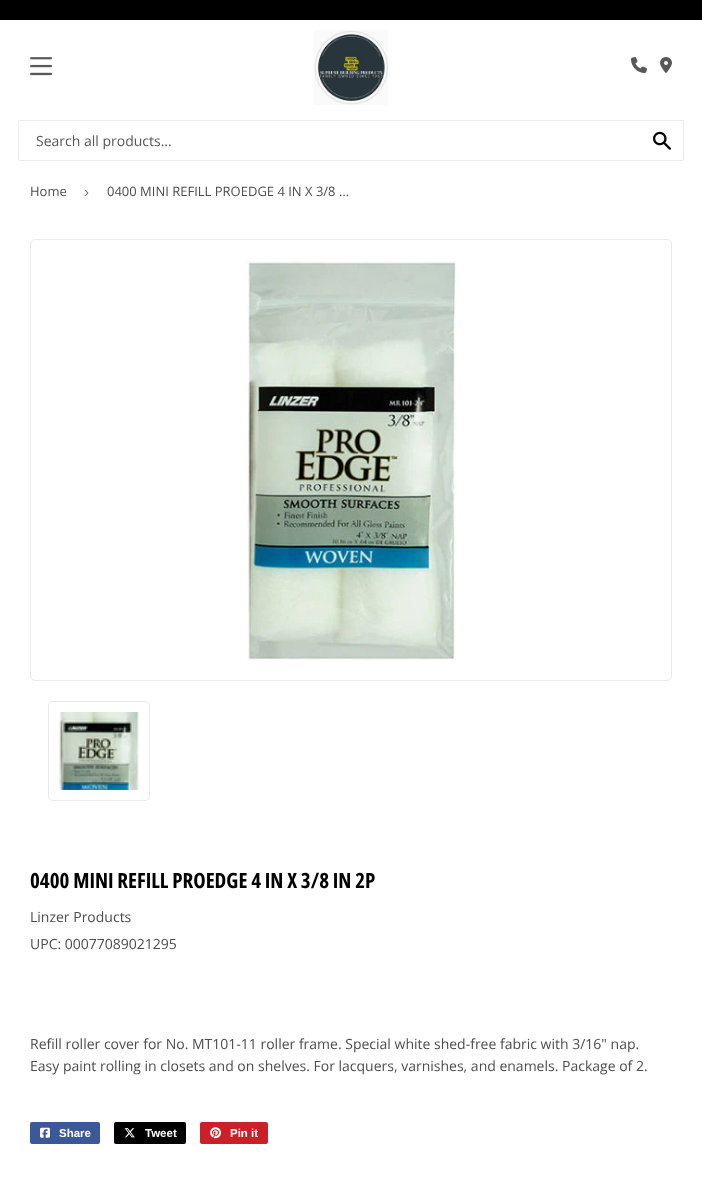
<?xml version="1.0" encoding="UTF-8"?>
<svg xmlns="http://www.w3.org/2000/svg" width="702" height="1181">
    <rect width="100%" height="100%" fill="#FFFFFF"/>
    <rect x="0" y="0" width="702" height="20" fill="#000000"/>
    <image x="30" y="57" width="22" height="19" href="img_01.png"/>
    <image x="314" y="30" width="74" height="75" href="img_02.png"/>
    <image x="631" y="57" width="16" height="16" href="img_03.png"/>
    <image x="660" y="57" width="12" height="16" href="img_04.png"/>
    <rect x="18.5" y="120.5" width="665" height="40" rx="1.5" fill="none" stroke="#EAEAEA"/>
    <text x="36" y="146" font-family="Open Sans" font-size="14" fill="#585858">Search all products...</text>
    <image x="653" y="131" width="18" height="19" href="img_05.png"/>
    <text x="30" y="196" font-family="Open Sans" font-size="13" fill="#4D4D4D">Home</text>
    <text x="84" y="197" font-family="Liberation Sans" font-size="15" fill="#767676">›</text>
    <text x="107" y="196" font-family="Open Sans" font-size="13" fill="#4D4D4D">0400 MINI REFILL PROEDGE 4 IN X 3/8 …</text>
    <rect x="30.5" y="239.5" width="641" height="441" rx="4.5" fill="none" stroke="#EAEAEA"/>
    <image x="246" y="260" width="210" height="400" href="img_06.png"/>
    <rect x="48.5" y="701.5" width="101" height="99" rx="4.5" fill="none" stroke="#EAEAEA"/>
    <image x="59" y="712" width="80" height="78" href="img_07.png"/>
    <text x="30" y="888" font-family="Open Sans Condensed" font-size="21" font-weight="700" fill="#000000">0400 MINI REFILL PROEDGE 4 IN X 3/8 IN 2P</text>
    <text font-family="Open Sans" font-size="14" fill="#4D4D4D">
        <tspan x="30" y="922">Linzer Products</tspan>
        <tspan x="30" y="949">UPC: 00077089021295</tspan>
    </text>
    <text font-family="Open Sans" font-size="14" fill="#4D4D4D">
        <tspan x="30" y="1049">Refill roller cover for No. MT101-11 roller frame. Special white shed-free fabric with 3/16" nap.</tspan>
        <tspan x="30" y="1071">Easy paint rolling in closets and on shelves. For lacquers, varnishes, and enamels. Package of 2.</tspan>
    </text>
    <rect x="30" y="1122" width="70" height="22" rx="2" fill="#3B5998"/>
    <image x="40" y="1127" width="10" height="11" href="img_08.png"/>
    <text x="59" y="1137" font-family="Liberation Sans" font-size="11.5" font-weight="700" fill="#FFFFFF">Share</text>
    <rect x="114" y="1122" width="72" height="22" rx="2" fill="#000000"/>
    <image x="124" y="1128" width="11" height="10" href="img_09.png"/>
    <text x="145" y="1137" font-family="Liberation Sans" font-size="11.5" font-weight="700" fill="#FFFFFF">Tweet</text>
    <rect x="200" y="1122" width="68" height="22" rx="2" fill="#CB2027"/>
    <image x="210" y="1127" width="11" height="12" href="img_10.png"/>
    <text x="230" y="1137" font-family="Liberation Sans" font-size="11.5" font-weight="700" fill="#FFFFFF">Pin it</text>
</svg>
